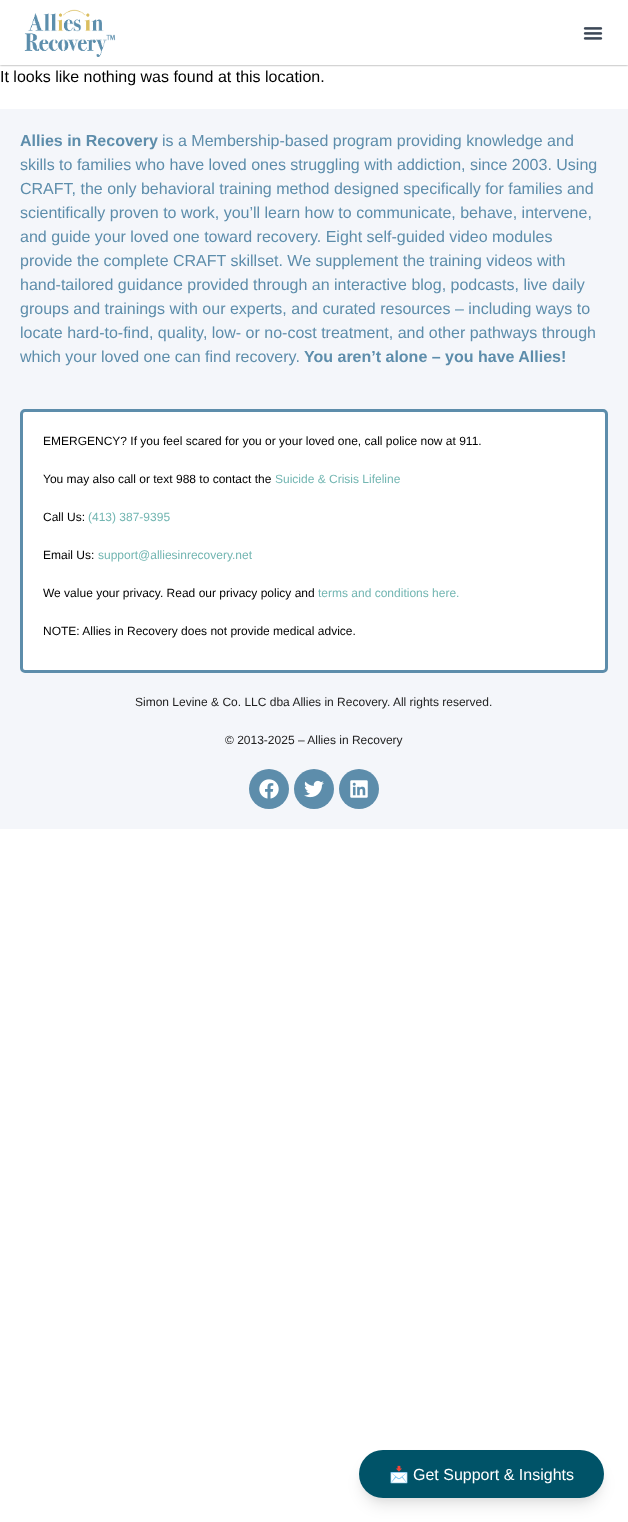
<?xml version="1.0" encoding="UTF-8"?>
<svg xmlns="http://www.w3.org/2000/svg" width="628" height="1522">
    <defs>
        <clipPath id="clip1"><rect x="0" y="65" width="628" height="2"/></clipPath>
        <filter id="blur1" x="-50%" y="-200%" width="200%" height="500%"><feGaussianBlur stdDeviation="1"/></filter>
        <filter id="blur2" x="-50%" y="-200%" width="200%" height="500%"><feGaussianBlur stdDeviation="3"/></filter>
        <filter id="blur3" x="-50%" y="-200%" width="200%" height="500%"><feGaussianBlur stdDeviation="7.5"/></filter>
    </defs>
    <rect width="100%" height="100%" fill="#FFFFFF"/>
    <g clip-path="url(#clip1)">
        <rect x="0" y="0" width="628" height="65" fill="#000000" fill-opacity="0.5" filter="url(#blur1)"/>
    </g>
    <image x="24" y="9" width="92" height="48" href="img_01.png"/>
    <image x="583" y="27" width="20" height="13" href="img_02.png"/>
    <text x="0" y="82" font-family="Liberation Sans" font-size="16" fill="#000000">It looks like nothing was found at this location.</text>
    <rect x="0" y="109" width="628" height="720" fill="#F4F6FA"/>
    <text x="20" y="146" font-family="Liberation Sans" font-size="16" font-weight="700" fill="#5D8DAB">Allies in Recovery</text>
    <text x="162" y="146" font-family="Liberation Sans" font-size="16" fill="#5D8DAB">is a Membership-based program providing knowledge and</text>
    <text font-family="Liberation Sans" font-size="16" fill="#5D8DAB">
        <tspan x="20" y="170">skills to families who have loved ones struggling with addiction, since 2003. Using</tspan>
        <tspan x="20" y="194">CRAFT, the only behavioral training method designed specifically for families and</tspan>
        <tspan x="20" y="218">scientifically proven to work, you’ll learn how to communicate, behave, intervene,</tspan>
        <tspan x="20" y="242">and guide your loved one toward recovery. Eight self-guided video modules</tspan>
        <tspan x="20" y="266">provide the complete CRAFT skillset. We supplement the training videos with</tspan>
        <tspan x="20" y="290">hand-tailored guidance provided through an interactive blog, podcasts, live daily</tspan>
        <tspan x="20" y="314">groups and trainings with our experts, and curated resources – including ways to</tspan>
        <tspan x="20" y="338">locate hard-to-find, quality, low- or no-cost treatment, and other pathways through</tspan>
        <tspan x="20" y="362">which your loved one can find recovery.</tspan>
    </text>
    <text x="304" y="362" font-family="Liberation Sans" font-size="16" font-weight="700" fill="#5D8DAB">You aren’t alone – you have Allies!</text>
    <rect x="21.5" y="410.5" width="585" height="261" rx="3.5" fill="#FFFFFF" stroke="#5D8DAB" stroke-width="3"/>
    <text x="43" y="445" font-family="Liberation Sans" font-size="12" fill="#000000">EMERGENCY? If you feel scared for you or your loved one, call police now at 911.</text>
    <text x="43" y="483" font-family="Liberation Sans" font-size="12" fill="#000000">You may also call or text 988 to contact the</text>
    <text x="275" y="483" font-family="Liberation Sans" font-size="12" fill="#73B6B2">Suicide &amp; Crisis Lifeline</text>
    <text x="43" y="521" font-family="Liberation Sans" font-size="12" fill="#000000">Call Us:</text>
    <text x="88" y="521" font-family="Liberation Sans" font-size="12" fill="#73B6B2">(413) 387-9395</text>
    <text x="43" y="559" font-family="Liberation Sans" font-size="12" fill="#000000">Email Us:</text>
    <text x="98" y="559" font-family="Liberation Sans" font-size="12" fill="#73B6B2">support@alliesinrecovery.net</text>
    <text x="43" y="597" font-family="Liberation Sans" font-size="12" fill="#000000">We value your privacy. Read our privacy policy and</text>
    <text x="318" y="597" font-family="Liberation Sans" font-size="12" fill="#73B6B2">terms and conditions here.</text>
    <text x="43" y="635" font-family="Liberation Sans" font-size="12" fill="#000000">NOTE: Allies in Recovery does not provide medical advice.</text>
    <text x="135" y="706" font-family="Liberation Sans" font-size="12" fill="#222222">Simon Levine &amp; Co. LLC dba Allies in Recovery. All rights reserved.</text>
    <text x="225" y="744" font-family="Liberation Sans" font-size="12" fill="#222222">© 2013-2025 – Allies in Recovery</text>
    <circle cx="269" cy="789" r="20" fill="#5D8DAB"/>
    <image x="259" y="779" width="20" height="20" href="img_03.png"/>
    <circle cx="314" cy="789" r="20" fill="#5D8DAB"/>
    <image x="304" y="780" width="20" height="18" href="img_04.png"/>
    <circle cx="359" cy="789" r="20" fill="#5D8DAB"/>
    <image x="350" y="780" width="18" height="18" href="img_05.png"/>
    <rect x="361" y="1456" width="241" height="44" rx="22" fill="#000000" fill-opacity="0.05" filter="url(#blur2)"/>
    <rect x="362" y="1463" width="239" height="42" rx="21" fill="#000000" fill-opacity="0.1" filter="url(#blur3)"/>
    <rect x="359" y="1450" width="245" height="48" rx="24" fill="#005368"/>
    <text x="389" y="1480" font-family="Noto Color Emoji" font-size="16" fill="#FFFFFF">📩</text>
    <text x="413" y="1480" font-family="Liberation Sans" font-size="16" fill="#FFFFFF">Get Support &amp; Insights</text>
</svg>
